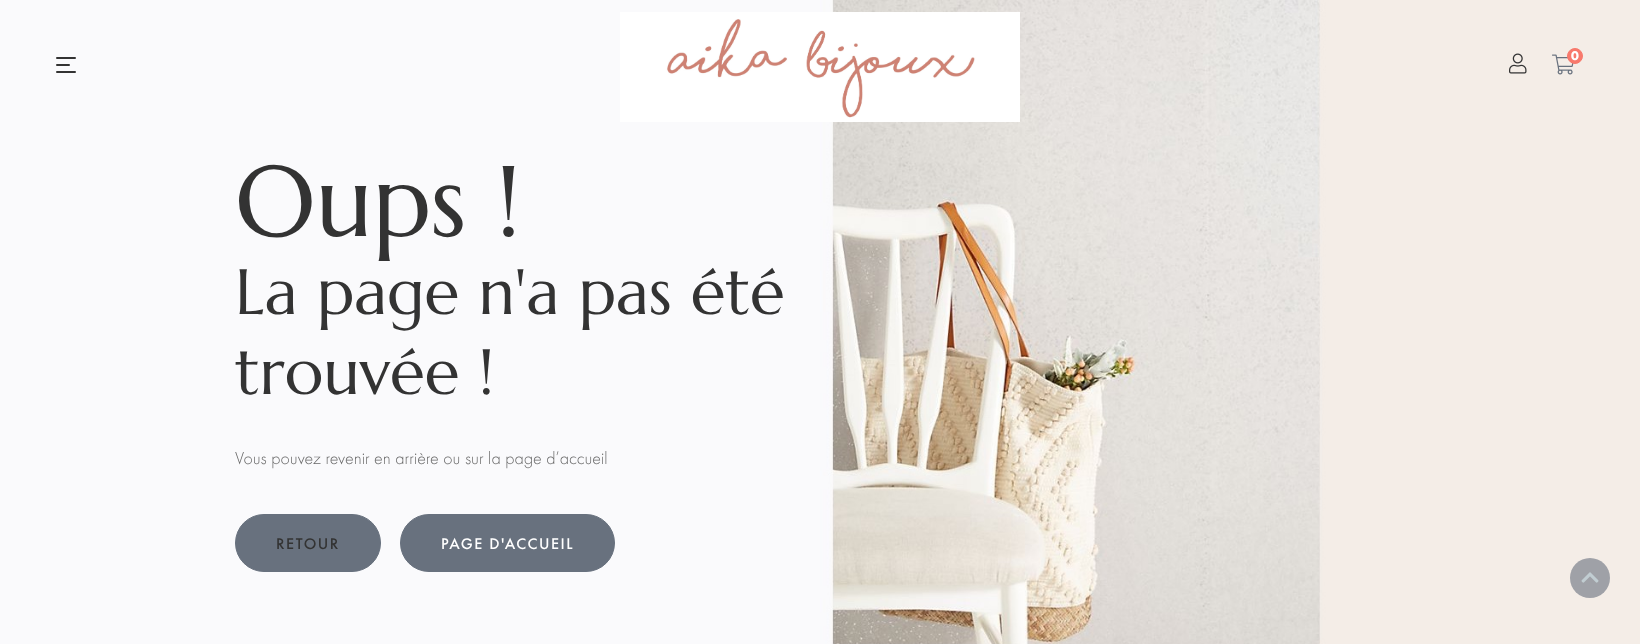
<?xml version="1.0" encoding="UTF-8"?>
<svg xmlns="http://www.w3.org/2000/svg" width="1640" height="644">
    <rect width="100%" height="100%" fill="#FFFFFF"/>
    <image x="0" y="0" width="1640" height="644" href="img_04.png"/>
    <image x="620" y="12" width="400" height="110" href="img_01.png"/>
    <image x="1509" y="53" width="18" height="21" href="img_02.png"/>
    <image x="1552" y="54" width="22" height="21" href="img_03.png"/>
    <circle cx="1575" cy="56" r="7.5" fill="#F8796C" stroke="#F8796C"/>
    <text x="1571" y="60" font-family="Futura" font-size="13" font-weight="700" fill="#FFFFFF">0</text>
    <rect x="56" y="57" width="20" height="2" rx="1" fill="#333333"/>
    <rect x="56" y="64" width="14" height="2" rx="1" fill="#333333"/>
    <rect x="56" y="71" width="20" height="2" rx="1" fill="#333333"/>
    <text x="235" y="236" font-family="Marcellus" font-size="100" fill="#333333">Oups !</text>
    <text font-family="Marcellus" font-size="64" fill="#333333">
        <tspan x="235" y="314">La page n'a pas été</tspan>
        <tspan x="235" y="394">trouvée !</tspan>
    </text>
    <text x="235" y="464" font-family="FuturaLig" font-size="18" fill="#696969">Vous pouvez revenir en arrière ou sur la page d’accueil</text>
    <rect x="235.5" y="514.5" width="145" height="57" rx="28.5" fill="#68717E" stroke="#68717E"/>
    <text x="276" y="549" font-family="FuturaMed" font-size="16" letter-spacing="1.5" fill="#333333">RETOUR</text>
    <rect x="400.5" y="514.5" width="214" height="57" rx="28.5" fill="#68717E" stroke="#68717E"/>
    <text x="441" y="549" font-family="FuturaMed" font-size="16" letter-spacing="1.5" fill="#FFFFFF">PAGE D'ACCUEIL</text>
    <circle cx="1590" cy="578" r="20" fill="#9FA1A7"/>
    <image x="1581" y="572" width="18" height="11" href="img_05.png"/>
</svg>
